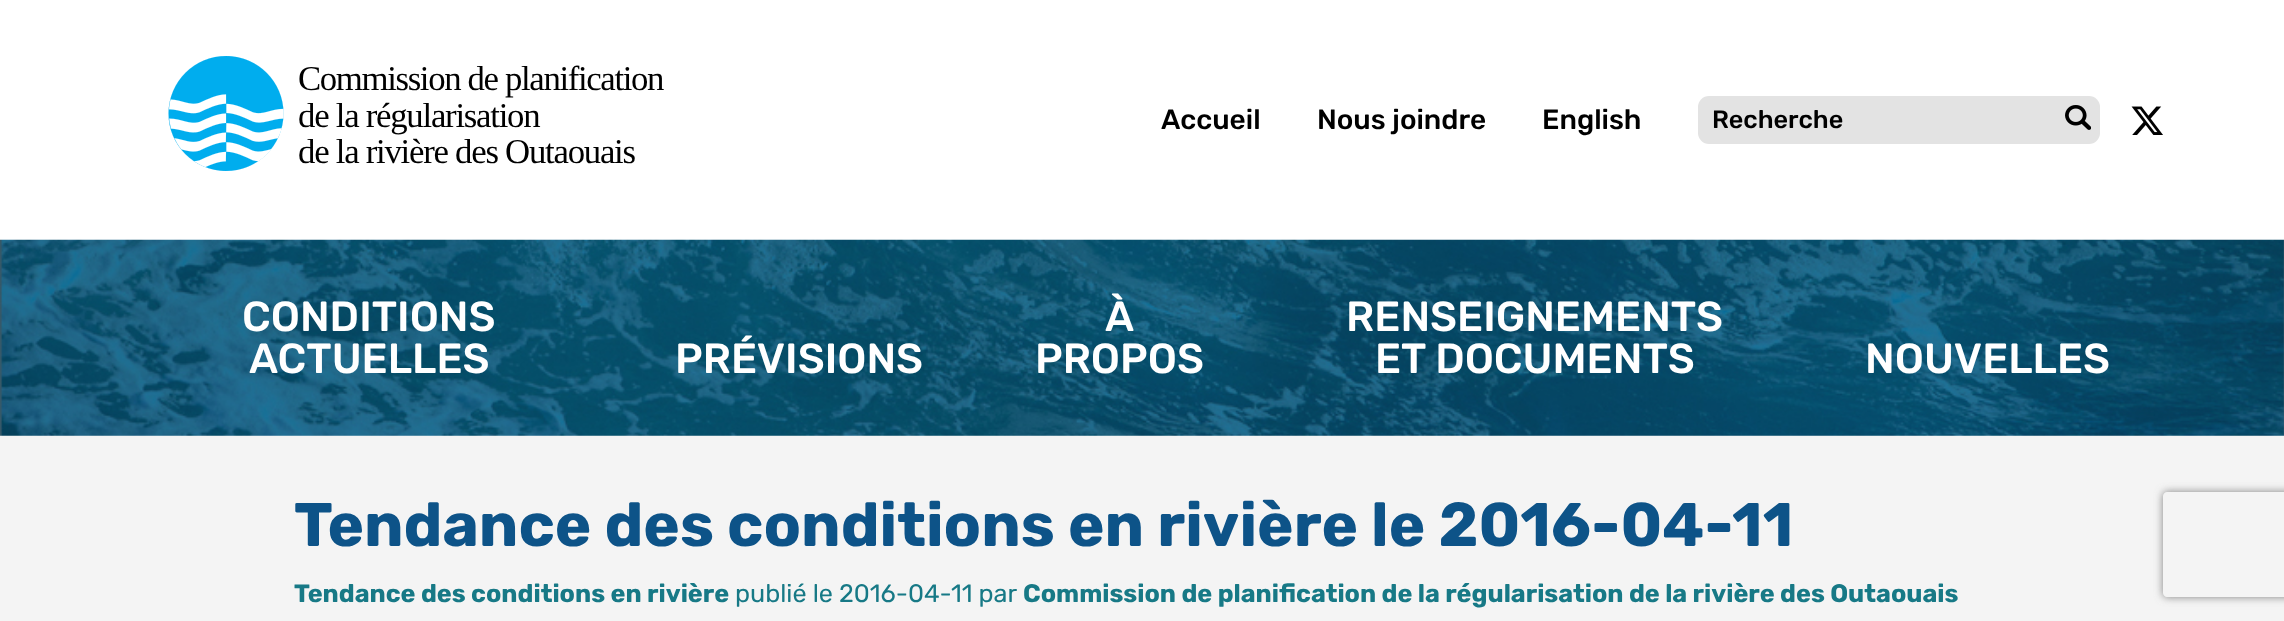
<?xml version="1.0" encoding="UTF-8"?>
<svg xmlns="http://www.w3.org/2000/svg" width="2284" height="621">
    <defs>
        <clipPath id="clip1"><path d="M 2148 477 H 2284 V 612 H 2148 Z M 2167 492 H 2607 C 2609 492 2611 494 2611 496 V 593 C 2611 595 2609 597 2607 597 H 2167 C 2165 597 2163 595 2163 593 V 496 C 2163 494 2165 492 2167 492 Z" clip-rule="evenodd"/></clipPath>
        <filter id="blur1" x="-50%" y="-200%" width="200%" height="500%"><feGaussianBlur stdDeviation="4.5"/></filter>
    </defs>
    <rect width="100%" height="100%" fill="#F4F4F4"/>
    <rect x="0" y="0" width="2284" height="240" fill="#FFFFFF"/>
    <image x="168" y="56" width="116" height="115" href="img_01.png"/>
    <text x="298" y="90" font-family="Liberation Serif" font-size="34.75" letter-spacing="-1.35" fill="#000000">Commission de planification</text>
    <text font-family="Liberation Serif" font-size="34.75" letter-spacing="-1.25" fill="#000000">
        <tspan x="298" y="127">de la régularisation</tspan>
        <tspan x="298" y="163">de la rivière des Outaouais</tspan>
    </text>
    <text x="1161" y="129" font-family="Rubik" font-size="28" font-weight="500" fill="#000000">Accueil</text>
    <text x="1317" y="129" font-family="Rubik" font-size="28" font-weight="500" fill="#000000">Nous joindre</text>
    <text x="1542" y="129" font-family="Rubik" font-size="28" font-weight="500" fill="#000000">English</text>
    <rect x="1698" y="96" width="402" height="48" rx="11" fill="#E3E3E3"/>
    <text x="1712" y="128" font-family="Rubik" font-size="25.2" font-weight="500" fill="#000000">Recherche</text>
    <image x="2065" y="105" width="26" height="25" href="img_02.png"/>
    <image x="2131" y="106" width="32" height="29" href="img_03.png"/>
    <image x="0" y="239" width="2284" height="197" href="img_04.png"/>
    <text x="242" y="331" font-family="Rubik" font-size="42" font-weight="500" fill="#FFFFFF">CONDITIONS</text>
    <text x="249" y="373" font-family="Rubik" font-size="42" font-weight="500" fill="#FFFFFF">ACTUELLES</text>
    <text x="675" y="373" font-family="Rubik" font-size="42" font-weight="500" fill="#FFFFFF">PRÉVISIONS</text>
    <text x="1105" y="331" font-family="Rubik" font-size="42" font-weight="500" fill="#FFFFFF">À</text>
    <text x="1035" y="373" font-family="Rubik" font-size="42" font-weight="500" fill="#FFFFFF">PROPOS</text>
    <text x="1346" y="331" font-family="Rubik" font-size="42" font-weight="500" fill="#FFFFFF">RENSEIGNEMENTS</text>
    <text x="1375" y="373" font-family="Rubik" font-size="42" font-weight="500" fill="#FFFFFF">ET DOCUMENTS</text>
    <text x="1865" y="373" font-family="Rubik" font-size="42" font-weight="500" fill="#FFFFFF">NOUVELLES</text>
    <text x="294" y="546" font-family="Rubik" font-size="61.6" font-weight="700" fill="#0D5388">Tendance des conditions en rivière le 2016-04-11</text>
    <text x="294" y="602" font-family="Rubik" font-size="25.2" font-weight="700" fill="#177986">Tendance des conditions en rivière</text>
    <text x="735" y="602" font-family="Rubik" font-size="25.2" fill="#177986">publié le 2016-04-11 par</text>
    <text x="1023" y="602" font-family="Rubik" font-size="25.2" font-weight="700" fill="#177986">Commission de planification de la régularisation de la rivière des Outaouais</text>
    <g clip-path="url(#clip1)">
        <rect x="2163" y="492" width="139" height="105" rx="4" fill="#808080" filter="url(#blur1)"/>
    </g>
</svg>
